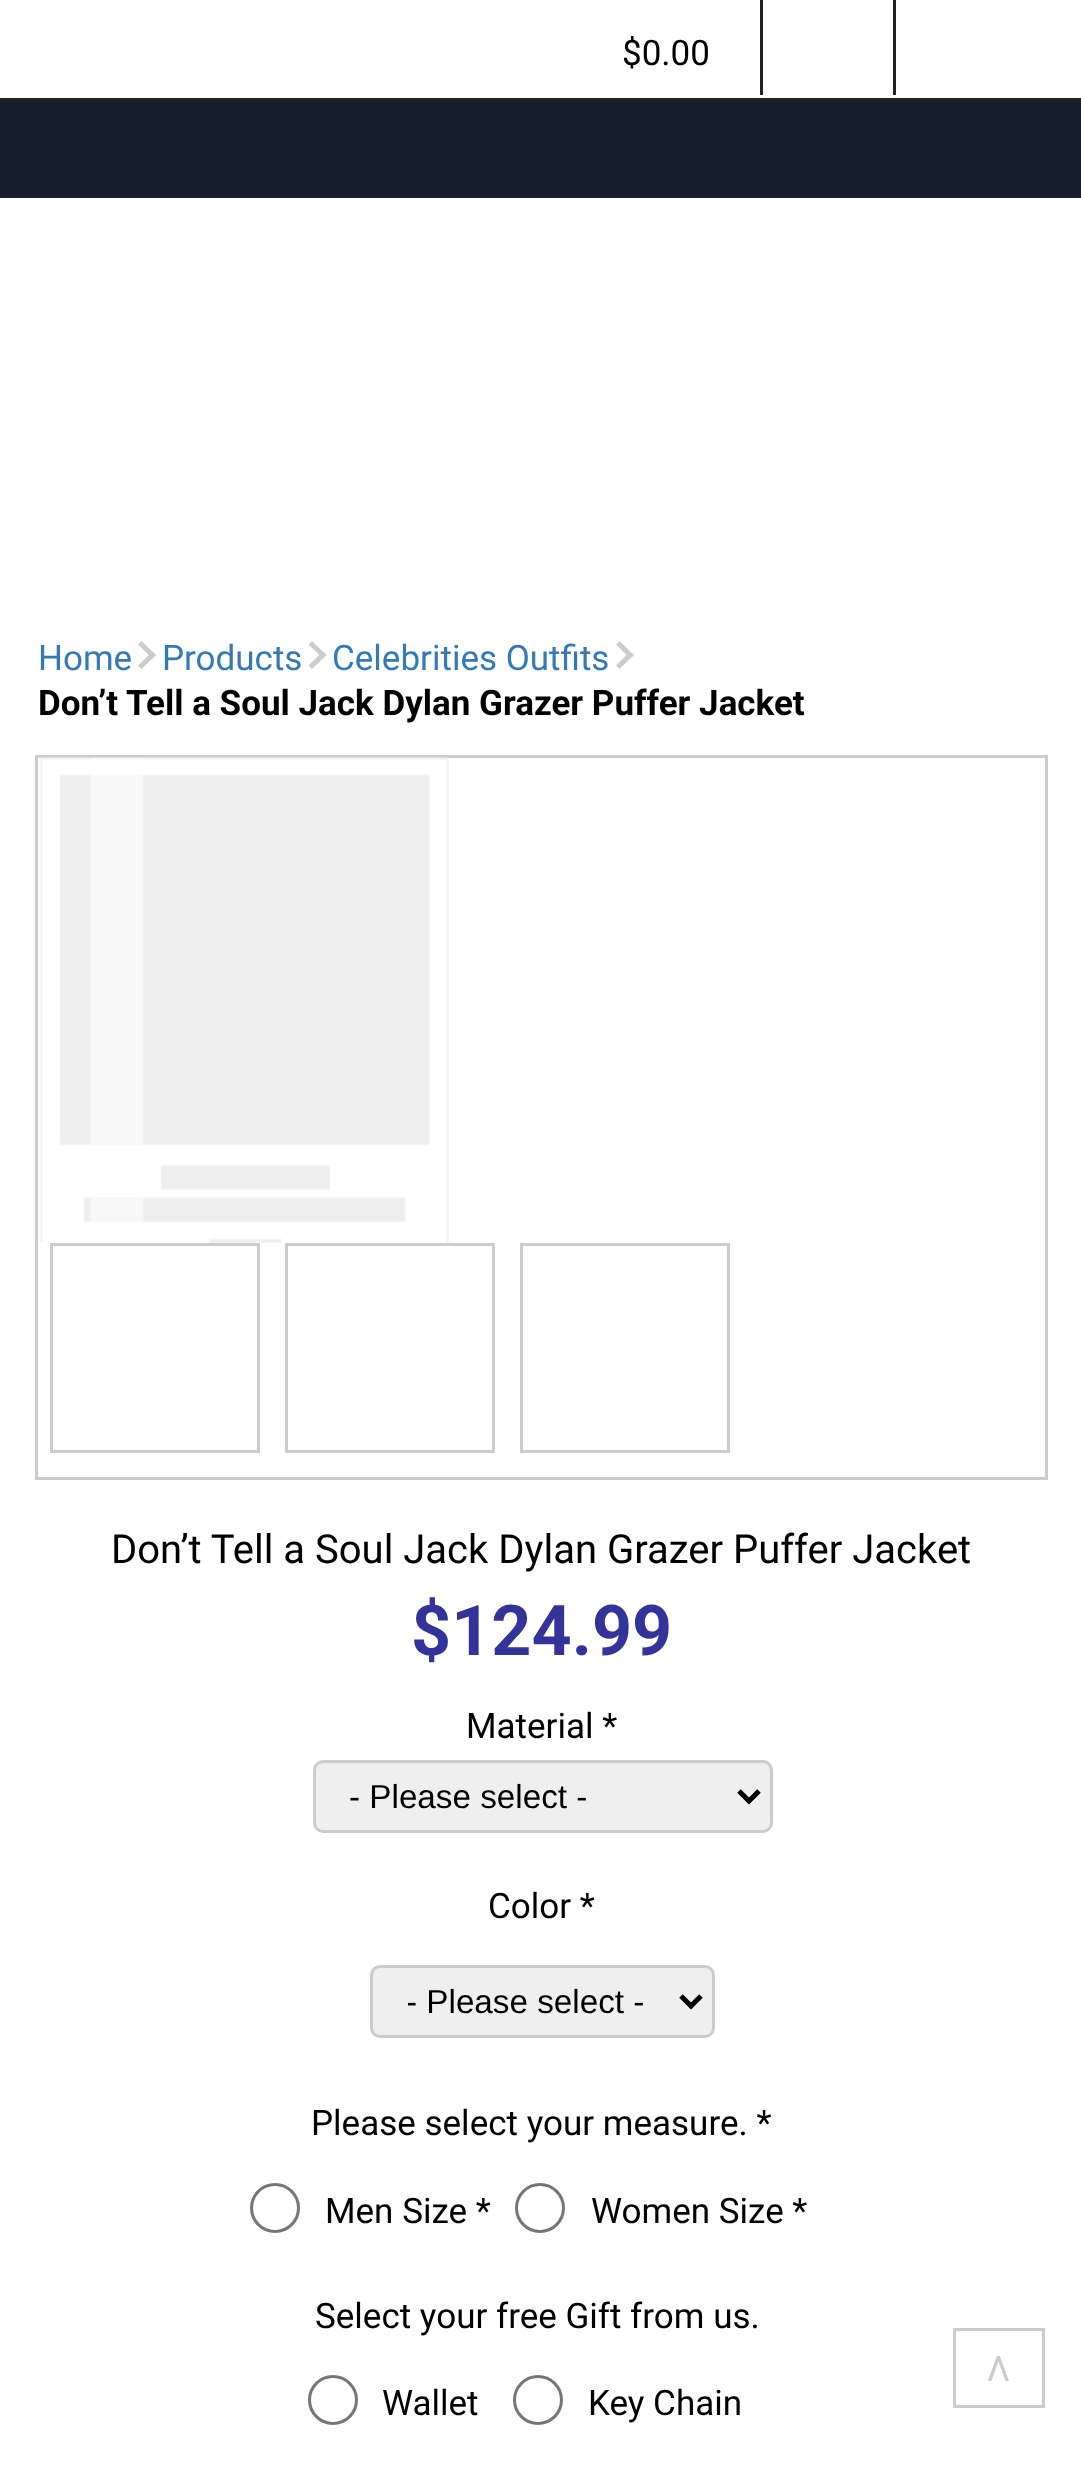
<?xml version="1.0" encoding="UTF-8"?>
<svg xmlns="http://www.w3.org/2000/svg" width="1081" height="2469">
    <defs>
        <clipPath id="clip1"><rect x="408" y="1980" width="240" height="43"/></clipPath>
    </defs>
    <rect width="100%" height="100%" fill="#FFFFFF"/>
    <text x="622" y="65" font-family="Roboto" font-size="35" fill="#000000">$0.00</text>
    <rect x="893" y="0" width="3" height="95" fill="#222222"/>
    <rect x="760" y="0" width="3" height="95" fill="#222222"/>
    <rect x="0" y="101" width="1081" height="97" fill="#141F2A"/>
    <rect x="0" y="98" width="1081" height="3" fill="#222222"/>
    <text x="38" y="670" font-family="Roboto" font-size="35" fill="#337AB7">Home</text>
    <path d="M 138 644.5 L 141.5 641 L 156 655 L 152.5 658.5 Z" fill="#CCCCCC"/>
    <path d="M 138 665.5 L 152.5 651.5 L 156 655 L 141.5 669 Z" fill="#CCCCCC"/>
    <text x="162" y="670" font-family="Roboto" font-size="35" fill="#337AB7">Products</text>
    <path d="M 308.5 644.5 L 312 641 L 326.5 655 L 323 658.5 Z" fill="#CCCCCC"/>
    <path d="M 308.5 665.5 L 323 651.5 L 326.5 655 L 312 669 Z" fill="#CCCCCC"/>
    <text x="332" y="670" font-family="Roboto" font-size="35" fill="#337AB7">Celebrities Outfits</text>
    <path d="M 616 644.5 L 619.5 641 L 634 655 L 630 658.5 Z" fill="#CCCCCC"/>
    <path d="M 616 665.5 L 630 651.5 L 634 655 L 619.5 669 Z" fill="#CCCCCC"/>
    <text x="38" y="715" font-family="Roboto" font-size="35" font-weight="700" fill="#000000">Don’t Tell a Soul Jack Dylan Grazer Puffer Jacket</text>
    <rect x="51.5" y="1244.5" width="207" height="207" fill="none" stroke="#CCCCCC" stroke-width="3"/>
    <rect x="286.5" y="1244.5" width="207" height="207" fill="none" stroke="#CCCCCC" stroke-width="3"/>
    <rect x="521.5" y="1244.5" width="207" height="207" fill="none" stroke="#CCCCCC" stroke-width="3"/>
    <rect x="36.5" y="756.5" width="1010" height="722" fill="none" stroke="#CCCCCC" stroke-width="3"/>
    <image x="38" y="757" width="411" height="486" href="img_01.png"/>
    <text x="111" y="1563" font-family="Roboto" font-size="40" fill="#000000">Don’t Tell a Soul Jack Dylan Grazer Puffer Jacket</text>
    <text x="411" y="1655" font-family="Roboto" font-size="70" font-weight="700" fill="#333399">$124.99</text>
    <text x="466" y="1738" font-family="Roboto" font-size="35" fill="#000000">Material *</text>
    <rect x="314.5" y="1761.5" width="457" height="70" rx="8.5" fill="#EFEFEF" stroke="#CCCCCC" stroke-width="3"/>
    <path d="M 739 1791 L 749 1801 L 759 1791" fill="none" stroke="#000000" stroke-width="5"/>
    <text x="349" y="1808" font-family="Liberation Sans" font-size="33.25" fill="#000000">- Please select -</text>
    <text x="488" y="1918" font-family="Roboto" font-size="35" fill="#000000">Color *</text>
    <rect x="371.5" y="1966.5" width="342" height="70" rx="8.5" fill="#EFEFEF" stroke="#CCCCCC" stroke-width="3"/>
    <path d="M 681 1996 L 691 2006 L 701 1996" fill="none" stroke="#000000" stroke-width="5"/>
    <g clip-path="url(#clip1)">
        <text x="406" y="2013" font-family="Liberation Sans" font-size="33.25" fill="#000000">- Please select -</text>
    </g>
    <text x="311" y="2135" font-family="Roboto" font-size="35" fill="#000000">Please select your measure. *</text>
    <circle cx="275" cy="2208" r="23.5" fill="none" stroke="#767676" stroke-width="3"/>
    <text x="325" y="2223" font-family="Roboto" font-size="35" fill="#000000">Men Size *</text>
    <circle cx="540" cy="2208" r="23.5" fill="none" stroke="#767676" stroke-width="3"/>
    <text x="591" y="2223" font-family="Roboto" font-size="35" fill="#000000">Women Size *</text>
    <text x="315" y="2328" font-family="Roboto" font-size="35" fill="#000000">Select your free Gift from us.</text>
    <circle cx="333" cy="2400" r="23.5" fill="none" stroke="#767676" stroke-width="3"/>
    <text x="382" y="2415" font-family="Roboto" font-size="35" fill="#000000">Wallet</text>
    <circle cx="538" cy="2400" r="23.5" fill="none" stroke="#767676" stroke-width="3"/>
    <text x="588" y="2415" font-family="Roboto" font-size="35" fill="#000000">Key Chain</text>
    <rect x="954.5" y="2329.5" width="89" height="77" fill="none" stroke="#CCCCCC" stroke-width="3"/>
    <text x="987" y="2381" font-family="Roboto" font-size="35" fill="#CCCCCC">Λ</text>
</svg>
